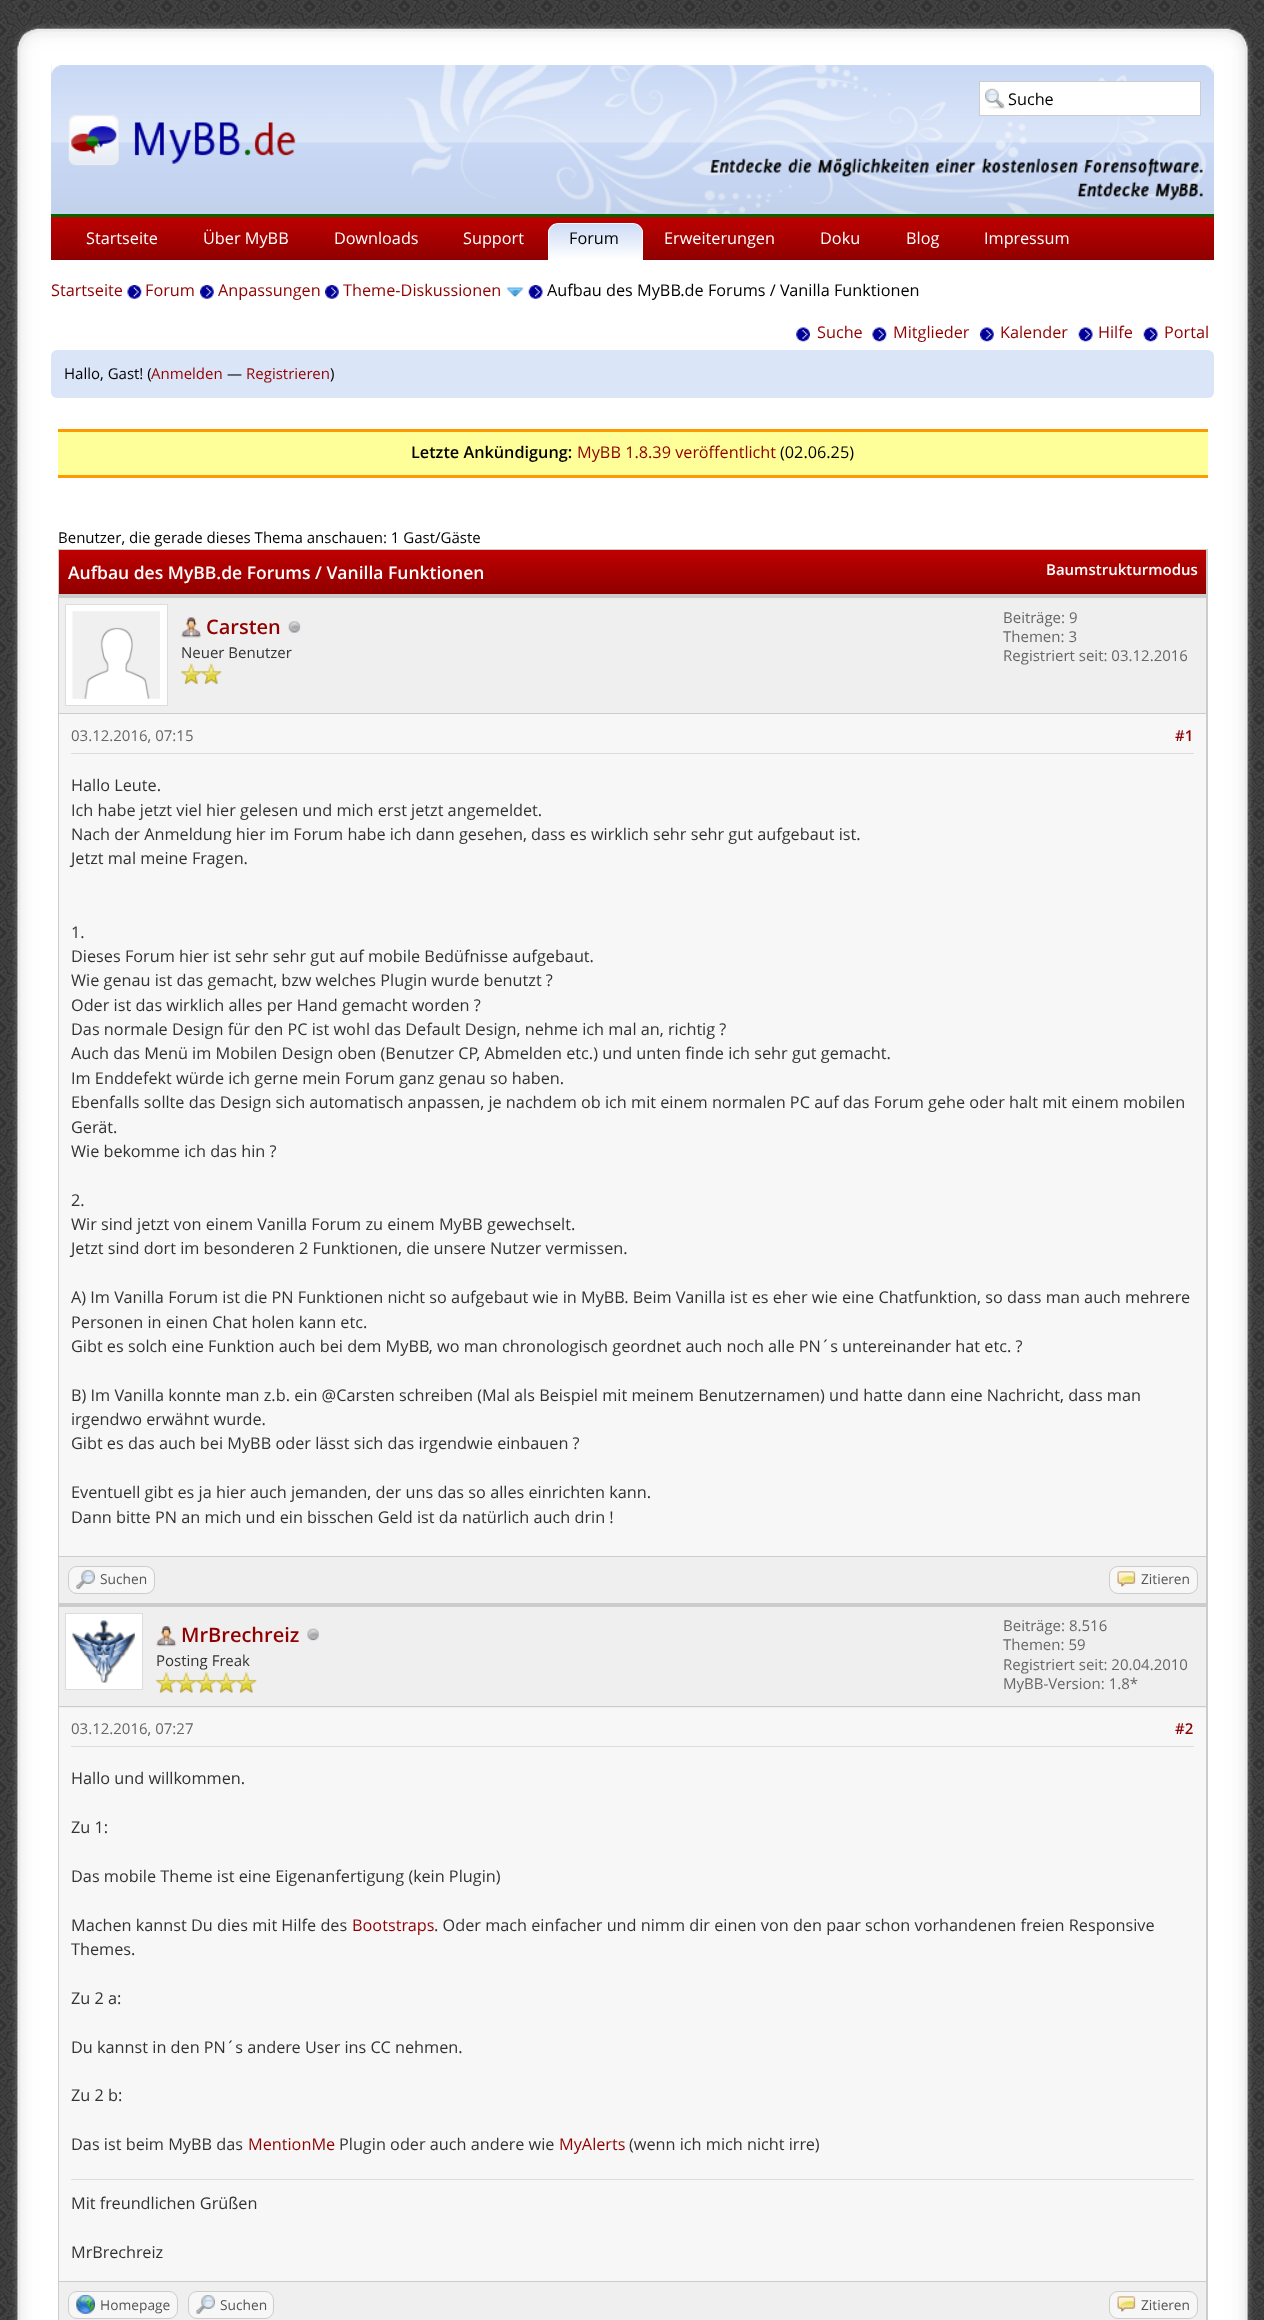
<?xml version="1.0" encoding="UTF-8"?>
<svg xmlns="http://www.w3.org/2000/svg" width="1264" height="2320">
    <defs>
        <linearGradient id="g1" gradientUnits="userSpaceOnUse" x1="633" y1="216" x2="633" y2="260"><stop offset="0" stop-color="#BF0000"/><stop offset="1" stop-color="#900000"/></linearGradient>
        <clipPath id="clip1"><path d="M 558 223 H 633 C 638.5 223 643 227.5 643 233 V 261 H 548 V 233 C 548 227.5 552.5 223 558 223 Z"/></clipPath>
        <linearGradient id="g2" gradientUnits="userSpaceOnUse" x1="595" y1="224" x2="595" y2="260"><stop offset="0" stop-color="#CEDCF6"/><stop offset="1" stop-color="#FFFFFF"/></linearGradient>
        <linearGradient id="g3" gradientUnits="userSpaceOnUse" x1="633" y1="550" x2="633" y2="594"><stop offset="0" stop-color="#BF0000"/><stop offset="1" stop-color="#900000"/></linearGradient>
    </defs>
    <rect width="100%" height="100%" fill="#FFFFFF"/>
    <image x="0" y="0" width="1264" height="2320" href="img_01.png"/>
    <image x="13" y="23" width="1239" height="27" href="img_02.png"/>
    <image x="12" y="50" width="1241" height="2270" href="img_03.png"/>
    <rect x="51" y="65" width="1163" height="149" fill="#C9D9F5"/>
    <image x="51" y="65" width="1163" height="149" href="img_04.png"/>
    <rect x="980" y="82" width="220" height="33" fill="#FFFFFF"/>
    <image x="985" y="88" width="20" height="21" href="img_05.png"/>
    <rect x="979.5" y="81.5" width="221" height="34" fill="none" stroke="#CCCCCC"/>
    <text x="1008" y="105" font-family="Open Sans" font-size="16.25" fill="#000000">Suche</text>
    <rect x="51" y="217" width="1163" height="43" fill="url(#g1)"/>
    <rect x="51" y="214" width="1163" height="3" fill="#006600"/>
    <text x="86" y="244" font-family="Open Sans" font-size="16.25" fill="#FFFFFF">Startseite</text>
    <text x="203" y="244" font-family="Open Sans" font-size="16.25" fill="#FFFFFF">Über MyBB</text>
    <text x="334" y="244" font-family="Open Sans" font-size="16.25" fill="#FFFFFF">Downloads</text>
    <text x="463" y="244" font-family="Open Sans" font-size="16.25" fill="#FFFFFF">Support</text>
    <g clip-path="url(#clip1)">
        <rect x="548" y="224" width="95" height="36" fill="url(#g2)"/>
    </g>
    <path d="M 558 223.5 H 633 C 638 223.5 642.5 228 642.5 233 V 260.5 H 548.5 V 233 C 548.5 228 553 223.5 558 223.5 Z" fill="none" stroke="#FFFFFF"/>
    <text x="569" y="244" font-family="Open Sans" font-size="16.25" fill="#000000">Forum</text>
    <text x="664" y="244" font-family="Open Sans" font-size="16.25" fill="#FFFFFF">Erweiterungen</text>
    <text x="820" y="244" font-family="Open Sans" font-size="16.25" fill="#FFFFFF">Doku</text>
    <text x="906" y="244" font-family="Open Sans" font-size="16.25" fill="#FFFFFF">Blog</text>
    <text x="984" y="244" font-family="Open Sans" font-size="16.25" fill="#FFFFFF">Impressum</text>
    <text x="51" y="296" font-family="Open Sans" font-size="16.25" fill="#900000">Startseite</text>
    <image x="127" y="285" width="15" height="14" href="img_06.png"/>
    <text x="145" y="296" font-family="Open Sans" font-size="16.25" fill="#900000">Forum</text>
    <image x="200" y="285" width="14" height="14" href="img_07.png"/>
    <text x="218" y="296" font-family="Open Sans" font-size="16.25" fill="#900000">Anpassungen</text>
    <image x="325" y="285" width="14" height="14" href="img_07.png"/>
    <text x="343" y="296" font-family="Open Sans" font-size="16.25" fill="#900000">Theme-Diskussionen</text>
    <image x="506" y="287" width="18" height="10" href="img_08.png"/>
    <image x="528" y="285" width="15" height="14" href="img_09.png"/>
    <text x="547" y="296" font-family="Open Sans" font-size="16.25" fill="#000000">Aufbau des MyBB.de Forums / Vanilla Funktionen</text>
    <image x="796" y="327" width="14" height="15" href="img_10.png"/>
    <text x="817" y="338" font-family="Open Sans" font-size="16.25" fill="#900000">Suche</text>
    <image x="872" y="327" width="15" height="15" href="img_11.png"/>
    <text x="893" y="338" font-family="Open Sans" font-size="16.25" fill="#900000">Mitglieder</text>
    <image x="980" y="327" width="14" height="15" href="img_12.png"/>
    <text x="1000" y="338" font-family="Open Sans" font-size="16.25" fill="#900000">Kalender</text>
    <image x="1078" y="327" width="15" height="15" href="img_13.png"/>
    <text x="1098" y="338" font-family="Open Sans" font-size="16.25" fill="#900000">Hilfe</text>
    <image x="1143" y="327" width="15" height="15" href="img_13.png"/>
    <text x="1164" y="338" font-family="Open Sans" font-size="16.25" fill="#900000">Portal</text>
    <rect x="51" y="350" width="1163" height="48" rx="6" fill="#DAE5F8"/>
    <text x="64" y="379" font-family="Open Sans" font-size="15" fill="#000000">Hallo, Gast! (</text>
    <text x="151" y="379" font-family="Open Sans" font-size="15" fill="#900000">Anmelden</text>
    <text x="227" y="379" font-family="Open Sans" font-size="15" fill="#000000">—</text>
    <text x="246" y="379" font-family="Open Sans" font-size="15" fill="#900000">Registrieren</text>
    <text x="330" y="379" font-family="Open Sans" font-size="15" fill="#000000">)</text>
    <rect x="58" y="432" width="1150" height="43" fill="#FFFF99"/>
    <rect x="58" y="429" width="1150" height="3" fill="#FF9900"/>
    <rect x="58" y="475" width="1150" height="3" fill="#FF9900"/>
    <text x="411" y="458" font-family="Open Sans" font-size="16.25" font-weight="600" fill="#000000">Letzte Ankündigung:</text>
    <text x="577" y="458" font-family="Open Sans" font-size="16.25" fill="#900000">MyBB 1.8.39 veröffentlicht</text>
    <text x="780" y="458" font-family="Open Sans" font-size="16.25" fill="#000000">(02.06.25)</text>
    <text x="58" y="543" font-family="Open Sans" font-size="15" fill="#000000">Benutzer, die gerade dieses Thema anschauen: 1 Gast/Gäste</text>
    <rect x="58" y="549" width="1150" height="1771" fill="#CCCCCC"/>
    <rect x="59" y="550" width="1147" height="44" fill="url(#g3)"/>
    <text x="68" y="579" font-family="Open Sans" font-size="17.5" font-weight="600" fill="#FFFFFF">Aufbau des MyBB.de Forums / Vanilla Funktionen</text>
    <text x="1046" y="575" font-family="Open Sans" font-size="15" font-weight="600" fill="#FFFFFF">Baumstrukturmodus</text>
    <rect x="59" y="714" width="1147" height="842" fill="#F7F7F7"/>
    <rect x="59" y="598" width="1147" height="115" fill="#EFEFEF"/>
    <rect x="65.5" y="604.5" width="102" height="101" fill="#FFFFFF" stroke="#DDDDDD"/>
    <image x="72" y="611" width="88" height="88" href="img_14.png"/>
    <image x="181" y="617" width="21" height="21" href="img_15.png"/>
    <text x="206" y="634" font-family="Open Sans" font-size="20" font-weight="600" fill="#900000">Carsten</text>
    <image x="288" y="621" width="13" height="12" href="img_16.png"/>
    <text x="181" y="658" font-family="Open Sans" font-size="15" fill="#333333">Neuer Benutzer</text>
    <image x="181" y="663" width="21" height="21" href="img_17.png"/>
    <image x="201" y="663" width="21" height="21" href="img_18.png"/>
    <text font-family="Open Sans" font-size="15" fill="#666666">
        <tspan x="1003" y="623">Beiträge: 9</tspan>
        <tspan x="1003" y="642">Themen: 3</tspan>
        <tspan x="1003" y="661">Registriert seit: 03.12.2016</tspan>
    </text>
    <rect x="71" y="753" width="1123" height="1" fill="#DDDDDD"/>
    <text x="71" y="741" font-family="Open Sans" font-size="15" fill="#666666">03.12.2016, 07:15</text>
    <text x="1175" y="741" font-family="Open Sans" font-size="15" font-weight="600" fill="#900000">#1</text>
    <text font-family="Open Sans" font-size="16.25" fill="#333333">
        <tspan x="71" y="791">Hallo Leute.</tspan>
        <tspan x="71" y="816">Ich habe jetzt viel hier gelesen und mich erst jetzt angemeldet.</tspan>
        <tspan x="71" y="840">Nach der Anmeldung hier im Forum habe ich dann gesehen, dass es wirklich sehr sehr gut aufgebaut ist.</tspan>
        <tspan x="71" y="864">Jetzt mal meine Fragen.</tspan>
    </text>
    <text font-family="Open Sans" font-size="16.25" fill="#333333">
        <tspan x="71" y="938">1.</tspan>
        <tspan x="71" y="962">Dieses Forum hier ist sehr sehr gut auf mobile Bedüfnisse aufgebaut.</tspan>
        <tspan x="71" y="986">Wie genau ist das gemacht, bzw welches Plugin wurde benutzt ?</tspan>
        <tspan x="71" y="1011">Oder ist das wirklich alles per Hand gemacht worden ?</tspan>
        <tspan x="71" y="1035">Das normale Design für den PC ist wohl das Default Design, nehme ich mal an, richtig ?</tspan>
        <tspan x="71" y="1059">Auch das Menü im Mobilen Design oben (Benutzer CP, Abmelden etc.) und unten finde ich sehr gut gemacht.</tspan>
        <tspan x="71" y="1084">Im Enddefekt würde ich gerne mein Forum ganz genau so haben.</tspan>
        <tspan x="71" y="1108">Ebenfalls sollte das Design sich automatisch anpassen, je nachdem ob ich mit einem normalen PC auf das Forum gehe oder halt mit einem mobilen</tspan>
        <tspan x="71" y="1133">Gerät.</tspan>
        <tspan x="71" y="1157">Wie bekomme ich das hin ?</tspan>
    </text>
    <text font-family="Open Sans" font-size="16.25" fill="#333333">
        <tspan x="71" y="1206">2.</tspan>
        <tspan x="71" y="1230">Wir sind jetzt von einem Vanilla Forum zu einem MyBB gewechselt.</tspan>
        <tspan x="71" y="1254">Jetzt sind dort im besonderen 2 Funktionen, die unsere Nutzer vermissen.</tspan>
    </text>
    <text font-family="Open Sans" font-size="16.25" fill="#333333">
        <tspan x="71" y="1303">A) Im Vanilla Forum ist die PN Funktionen nicht so aufgebaut wie in MyBB. Beim Vanilla ist es eher wie eine Chatfunktion, so dass man auch mehrere</tspan>
        <tspan x="71" y="1328">Personen in einen Chat holen kann etc.</tspan>
        <tspan x="71" y="1352">Gibt es solch eine Funktion auch bei dem MyBB, wo man chronologisch geordnet auch noch alle PN´s untereinander hat etc. ?</tspan>
    </text>
    <text font-family="Open Sans" font-size="16.25" fill="#333333">
        <tspan x="71" y="1401">B) Im Vanilla konnte man z.b. ein @Carsten schreiben (Mal als Beispiel mit meinem Benutzernamen) und hatte dann eine Nachricht, dass man</tspan>
        <tspan x="71" y="1425">irgendwo erwähnt wurde.</tspan>
        <tspan x="71" y="1449">Gibt es das auch bei MyBB oder lässt sich das irgendwie einbauen ?</tspan>
    </text>
    <text font-family="Open Sans" font-size="16.25" fill="#333333">
        <tspan x="71" y="1498">Eventuell gibt es ja hier auch jemanden, der uns das so alles einrichten kann.</tspan>
        <tspan x="71" y="1523">Dann bitte PN an mich und ein bisschen Geld ist da natürlich auch drin !</tspan>
    </text>
    <rect x="59" y="1557" width="1147" height="46" fill="#EFEFEF"/>
    <rect x="68.5" y="1566.5" width="86" height="27" rx="8.5" fill="#F7F7F7" stroke="#CCCCCC"/>
    <image x="76" y="1570" width="19" height="19" href="img_19.png"/>
    <text x="100" y="1584" font-family="Open Sans" font-size="13.75" fill="#555555">Suchen</text>
    <rect x="1109.5" y="1566.5" width="88" height="27" rx="8.5" fill="#F7F7F7" stroke="#CCCCCC"/>
    <image x="1117" y="1571" width="19" height="16" href="img_20.png"/>
    <text x="1141" y="1584" font-family="Open Sans" font-size="13.75" fill="#555555">Zitieren</text>
    <rect x="59" y="1708" width="1147" height="573" fill="#F7F7F7"/>
    <rect x="59" y="1607" width="1147" height="101" fill="#EFEFEF"/>
    <rect x="59" y="1706" width="1147" height="1" fill="#CCCCCC"/>
    <rect x="65.5" y="1613.5" width="77" height="76" fill="#FFFFFF" stroke="#DDDDDD"/>
    <image x="72" y="1620" width="63" height="63" href="img_21.png"/>
    <image x="156" y="1626" width="21" height="21" href="img_22.png"/>
    <text x="181" y="1642" font-family="Open Sans" font-size="20" font-weight="600" fill="#900000">MrBrechreiz</text>
    <image x="307" y="1628" width="12" height="13" href="img_23.png"/>
    <text x="156" y="1666" font-family="Open Sans" font-size="15" fill="#333333">Posting Freak</text>
    <image x="156" y="1672" width="21" height="21" href="img_24.png"/>
    <image x="176" y="1672" width="21" height="21" href="img_25.png"/>
    <image x="196" y="1672" width="21" height="21" href="img_25.png"/>
    <image x="216" y="1672" width="21" height="21" href="img_25.png"/>
    <image x="236" y="1672" width="21" height="21" href="img_25.png"/>
    <text font-family="Open Sans" font-size="15" fill="#666666">
        <tspan x="1003" y="1631">Beiträge: 8.516</tspan>
        <tspan x="1003" y="1650">Themen: 59</tspan>
        <tspan x="1003" y="1670">Registriert seit: 20.04.2010</tspan>
        <tspan x="1003" y="1689">MyBB-Version: 1.8*</tspan>
    </text>
    <rect x="71" y="1746" width="1123" height="1" fill="#DDDDDD"/>
    <text x="71" y="1734" font-family="Open Sans" font-size="15" fill="#666666">03.12.2016, 07:27</text>
    <text x="1175" y="1734" font-family="Open Sans" font-size="15" font-weight="600" fill="#900000">#2</text>
    <text x="71" y="1784" font-family="Open Sans" font-size="16.25" fill="#333333">Hallo und willkommen.</text>
    <text x="71" y="1833" font-family="Open Sans" font-size="16.25" fill="#333333">Zu 1:</text>
    <text x="71" y="1882" font-family="Open Sans" font-size="16.25" fill="#333333">Das mobile Theme ist eine Eigenanfertigung (kein Plugin)</text>
    <text x="71" y="1931" font-family="Open Sans" font-size="16.25" fill="#333333">Machen kannst Du dies mit Hilfe des</text>
    <text x="352" y="1931" font-family="Open Sans" font-size="16.25" fill="#900000">Bootstraps</text>
    <text x="434" y="1931" font-family="Open Sans" font-size="16.25" fill="#333333">. Oder mach einfacher und nimm dir einen von den paar schon vorhandenen freien Responsive</text>
    <text x="71" y="1955" font-family="Open Sans" font-size="16.25" fill="#333333">Themes.</text>
    <text x="71" y="2004" font-family="Open Sans" font-size="16.25" fill="#333333">Zu 2 a:</text>
    <text x="71" y="2053" font-family="Open Sans" font-size="16.25" fill="#333333">Du kannst in den PN´s andere User ins CC nehmen.</text>
    <text x="71" y="2101" font-family="Open Sans" font-size="16.25" fill="#333333">Zu 2 b:</text>
    <text x="71" y="2150" font-family="Open Sans" font-size="16.25" fill="#333333">Das ist beim MyBB das</text>
    <text x="248" y="2150" font-family="Open Sans" font-size="16.25" fill="#900000">MentionMe</text>
    <text x="339" y="2150" font-family="Open Sans" font-size="16.25" fill="#333333">Plugin oder auch andere wie</text>
    <text x="559" y="2150" font-family="Open Sans" font-size="16.25" fill="#900000">MyAlerts</text>
    <text x="629" y="2150" font-family="Open Sans" font-size="16.25" fill="#333333">(wenn ich mich nicht irre)</text>
    <rect x="71" y="2179" width="1123" height="1" fill="#DDDDDD"/>
    <text x="71" y="2209" font-family="Open Sans" font-size="16.25" fill="#333333">Mit freundlichen Grüßen</text>
    <text x="71" y="2258" font-family="Open Sans" font-size="16.25" fill="#333333">MrBrechreiz</text>
    <rect x="59" y="2282" width="1147" height="38" fill="#EFEFEF"/>
    <rect x="68.5" y="2291.5" width="109" height="27" rx="8.5" fill="#F7F7F7" stroke="#CCCCCC"/>
    <image x="76" y="2295" width="19" height="19" href="img_26.png"/>
    <text x="100" y="2310" font-family="Open Sans" font-size="13.75" fill="#555555">Homepage</text>
    <rect x="188.5" y="2291.5" width="85" height="27" rx="8.5" fill="#F7F7F7" stroke="#CCCCCC"/>
    <image x="196" y="2295" width="19" height="19" href="img_27.png"/>
    <text x="220" y="2310" font-family="Open Sans" font-size="13.75" fill="#555555">Suchen</text>
    <rect x="1109.5" y="2291.5" width="88" height="27" rx="8.5" fill="#F7F7F7" stroke="#CCCCCC"/>
    <image x="1117" y="2296" width="19" height="16" href="img_28.png"/>
    <text x="1141" y="2310" font-family="Open Sans" font-size="13.75" fill="#555555">Zitieren</text>
</svg>
